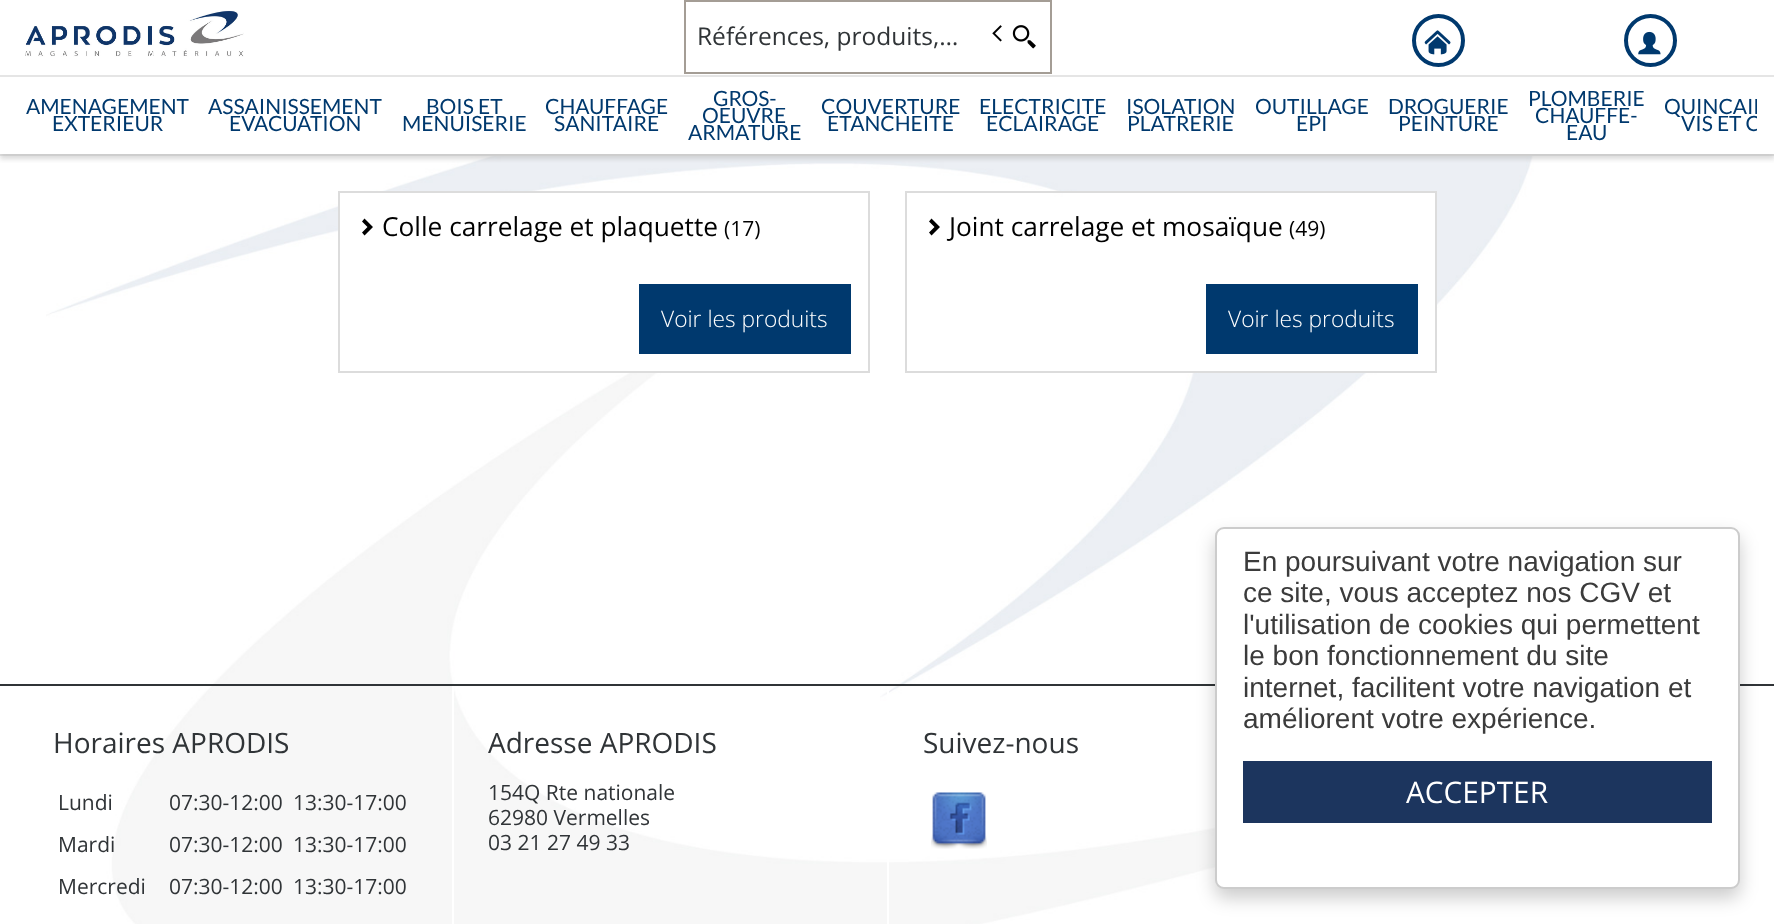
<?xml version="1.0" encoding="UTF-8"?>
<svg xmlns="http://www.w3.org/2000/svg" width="1774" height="924">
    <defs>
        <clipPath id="clip1"><rect x="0" y="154" width="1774" height="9"/></clipPath>
        <filter id="blur1" x="-50%" y="-200%" width="200%" height="500%"><feGaussianBlur stdDeviation="2.5"/></filter>
        <clipPath id="clip2"><rect x="18" y="77" width="1739" height="77"/></clipPath>
        <filter id="blur2" x="-50%" y="-200%" width="200%" height="500%"><feGaussianBlur stdDeviation="9"/></filter>
    </defs>
    <rect width="100%" height="100%" fill="#FFFFFF"/>
    <image x="46" y="156" width="1679" height="768" href="img_01.png"/>
    <image x="25" y="10" width="219" height="47" href="img_02.png"/>
    <rect x="0" y="75" width="1774" height="2" fill="#E5E5E5"/>
    <rect x="0" y="154" width="1774" height="2" fill="#E5E5E5"/>
    <g clip-path="url(#clip1)">
        <rect x="0" y="82" width="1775" height="77" fill="#B6B6B6" fill-opacity="0.5" filter="url(#blur1)"/>
    </g>
    <rect x="685" y="1" width="366" height="72" fill="none" stroke="#A49D95" stroke-width="2"/>
    <text x="697" y="45" font-family="Open Sans" font-size="24.5" fill="#303437">Références, produits,…</text>
    <image x="992" y="25" width="44" height="24" href="img_03.png"/>
    <circle cx="1438.5" cy="40.5" r="24.5" fill="none" stroke="#00396E" stroke-width="4"/>
    <image x="1424" y="30" width="27" height="25" href="img_04.png"/>
    <circle cx="1650.5" cy="40.5" r="24.5" fill="none" stroke="#00396E" stroke-width="4"/>
    <image x="1638" y="31" width="23" height="24" href="img_05.png"/>
    <text x="26" y="114" font-family="Lato" font-size="21" fill="#00396E">AMENAGEMENT</text>
    <text x="52" y="131" font-family="Lato" font-size="21" fill="#00396E">EXTERIEUR</text>
    <text x="208" y="114" font-family="Lato" font-size="21" fill="#00396E">ASSAINISSEMENT</text>
    <text x="229" y="131" font-family="Lato" font-size="21" fill="#00396E">EVACUATION</text>
    <text x="426" y="114" font-family="Lato" font-size="21" fill="#00396E">BOIS ET</text>
    <text x="402" y="131" font-family="Lato" font-size="21" fill="#00396E">MENUISERIE</text>
    <text x="545" y="114" font-family="Lato" font-size="21" fill="#00396E">CHAUFFAGE</text>
    <text x="554" y="131" font-family="Lato" font-size="21" fill="#00396E">SANITAIRE</text>
    <text x="713" y="106" font-family="Lato" font-size="21" fill="#00396E">GROS-</text>
    <text x="702" y="123" font-family="Lato" font-size="21" fill="#00396E">OEUVRE</text>
    <text x="688" y="140" font-family="Lato" font-size="21" fill="#00396E">ARMATURE</text>
    <text x="821" y="114" font-family="Lato" font-size="21" fill="#00396E">COUVERTURE</text>
    <text x="827" y="131" font-family="Lato" font-size="21" fill="#00396E">ETANCHEITE</text>
    <text x="979" y="114" font-family="Lato" font-size="21" fill="#00396E">ELECTRICITE</text>
    <text x="986" y="131" font-family="Lato" font-size="21" fill="#00396E">ECLAIRAGE</text>
    <text x="1126" y="114" font-family="Lato" font-size="21" fill="#00396E">ISOLATION</text>
    <text x="1127" y="131" font-family="Lato" font-size="21" fill="#00396E">PLATRERIE</text>
    <text x="1255" y="114" font-family="Lato" font-size="21" fill="#00396E">OUTILLAGE</text>
    <text x="1296" y="131" font-family="Lato" font-size="21" fill="#00396E">EPI</text>
    <text x="1388" y="114" font-family="Lato" font-size="21" fill="#00396E">DROGUERIE</text>
    <text x="1398" y="131" font-family="Lato" font-size="21" fill="#00396E">PEINTURE</text>
    <text x="1528" y="106" font-family="Lato" font-size="21" fill="#00396E">PLOMBERIE</text>
    <text x="1535" y="123" font-family="Lato" font-size="21" fill="#00396E">CHAUFFE-</text>
    <text x="1566" y="140" font-family="Lato" font-size="21" fill="#00396E">EAU</text>
    <g clip-path="url(#clip2)">
        <text x="1664" y="114" font-family="Lato" font-size="21" fill="#00396E">QUINCAIL</text>
        <text x="1681" y="131" font-family="Lato" font-size="21" fill="#00396E">VIS ET C</text>
    </g>
    <rect x="340" y="193" width="425" height="178" fill="#FFFFFF"/>
    <rect x="339" y="192" width="530" height="180" fill="none" stroke="#DCDCDC" stroke-width="2"/>
    <path d="M 362 221.5 L 364.5 218.5 L 373 227 L 364.5 235.5 L 362 232.5 L 367.5 227 Z" fill="#000000"/>
    <text x="382" y="236" font-family="Open Sans" font-size="26.25" fill="#000000">Colle carrelage et plaquette</text>
    <text x="724" y="236" font-family="Open Sans" font-size="21" fill="#000000">(17)</text>
    <rect x="639" y="284" width="212" height="70" fill="#00396E"/>
    <text x="661" y="327" font-family="Open Sans" font-size="22.75" font-weight="300" fill="#FFFFFF">Voir les produits</text>
    <rect x="1063" y="193" width="372" height="178" fill="#FFFFFF"/>
    <rect x="906" y="192" width="530" height="180" fill="none" stroke="#DCDCDC" stroke-width="2"/>
    <path d="M 929 221.5 L 931.5 218.5 L 940 227 L 931.5 235.5 L 929 232.5 L 934.5 227 Z" fill="#000000"/>
    <text x="949" y="236" font-family="Open Sans" font-size="26.25" fill="#000000">Joint carrelage et mosaïque</text>
    <text x="1289" y="236" font-family="Open Sans" font-size="21" fill="#000000">(49)</text>
    <rect x="1206" y="284" width="212" height="70" fill="#00396E"/>
    <text x="1228" y="327" font-family="Open Sans" font-size="22.75" font-weight="300" fill="#FFFFFF">Voir les produits</text>
    <rect x="0" y="684" width="1774" height="2" fill="#303437"/>
    <rect x="452" y="686" width="2" height="238" fill="#FFFFFF"/>
    <text x="53" y="753" font-family="Open Sans" font-size="28" fill="#303437">Horaires APRODIS</text>
    <text x="58" y="810" font-family="Open Sans" font-size="21" fill="#303437">Lundi</text>
    <text x="169" y="810" font-family="Open Sans" font-size="21" fill="#303437">07:30-12:00</text>
    <text x="293" y="810" font-family="Open Sans" font-size="21" fill="#303437">13:30-17:00</text>
    <text x="58" y="852" font-family="Open Sans" font-size="21" fill="#303437">Mardi</text>
    <text x="169" y="852" font-family="Open Sans" font-size="21" fill="#303437">07:30-12:00</text>
    <text x="293" y="852" font-family="Open Sans" font-size="21" fill="#303437">13:30-17:00</text>
    <text x="58" y="894" font-family="Open Sans" font-size="21" fill="#303437">Mercredi</text>
    <text x="169" y="894" font-family="Open Sans" font-size="21" fill="#303437">07:30-12:00</text>
    <text x="293" y="894" font-family="Open Sans" font-size="21" fill="#303437">13:30-17:00</text>
    <rect x="887" y="686" width="2" height="238" fill="#FFFFFF"/>
    <text x="488" y="753" font-family="Open Sans" font-size="28" fill="#303437">Adresse APRODIS</text>
    <text font-family="Open Sans" font-size="21" fill="#303437">
        <tspan x="488" y="800">154Q Rte nationale</tspan>
        <tspan x="488" y="825">62980 Vermelles</tspan>
        <tspan x="488" y="850">03 21 27 49 33</tspan>
    </text>
    <text x="923" y="753" font-family="Open Sans" font-size="28" fill="#303437">Suivez-nous</text>
    <image x="931" y="792" width="56" height="57" href="img_06.png"/>
    <rect x="1215" y="536" width="525" height="362" rx="9" fill="#000000" fill-opacity="0.2" filter="url(#blur2)"/>
    <rect x="1216" y="528" width="523" height="360" rx="8" fill="#FFFFFF" stroke="#CCCCCC" stroke-width="2"/>
    <text font-family="Liberation Sans" font-size="28" fill="#3B3B3B">
        <tspan x="1243" y="571">En poursuivant votre navigation sur</tspan>
        <tspan x="1243" y="602">ce site, vous acceptez nos CGV et</tspan>
        <tspan x="1243" y="634">l'utilisation de cookies qui permettent</tspan>
        <tspan x="1243" y="665">le bon fonctionnement du site</tspan>
        <tspan x="1243" y="697">internet, facilitent votre navigation et</tspan>
        <tspan x="1243" y="728">améliorent votre expérience.</tspan>
    </text>
    <rect x="1243" y="761" width="469" height="62" fill="#1C355E"/>
    <text x="1406" y="803" font-family="Open Sans" font-size="29.75" fill="#FFFFFF">ACCEPTER</text>
</svg>
